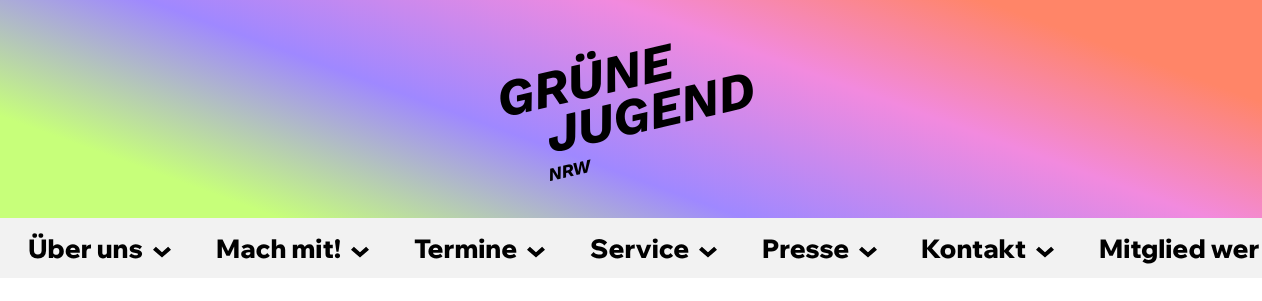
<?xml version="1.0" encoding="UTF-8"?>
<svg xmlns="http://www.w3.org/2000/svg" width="1262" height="301">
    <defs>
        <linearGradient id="g1" gradientUnits="userSpaceOnUse" x1="740" y1="-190" x2="522" y2="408"><stop offset="0.15" stop-color="#FF8568"/><stop offset="0.35" stop-color="#F28ADE"/><stop offset="0.6" stop-color="#9F88FF"/><stop offset="0.85" stop-color="#C7FF7A"/></linearGradient>
    </defs>
    <rect width="100%" height="100%" fill="#FFFFFF"/>
    <rect x="0" y="0" width="1262" height="218" fill="url(#g1)"/>
    <image x="500" y="43" width="253" height="138" href="img_01.png"/>
    <rect x="0" y="218" width="1262" height="60" fill="#F2F2F2"/>
    <text x="28" y="258" font-family="Wix Madefor Display" font-size="26" font-weight="800" fill="#000000">Über uns</text>
    <image x="153" y="246" width="18" height="12" href="img_02.png"/>
    <text x="216" y="258" font-family="Wix Madefor Display" font-size="26" font-weight="800" fill="#000000">Mach mit!</text>
    <image x="351" y="246" width="18" height="12" href="img_02.png"/>
    <text x="414" y="258" font-family="Wix Madefor Display" font-size="26" font-weight="800" fill="#000000">Termine</text>
    <image x="527" y="246" width="18" height="12" href="img_02.png"/>
    <text x="590" y="258" font-family="Wix Madefor Display" font-size="26" font-weight="800" fill="#000000">Service</text>
    <image x="699" y="246" width="18" height="12" href="img_02.png"/>
    <text x="762" y="258" font-family="Wix Madefor Display" font-size="26" font-weight="800" fill="#000000">Presse</text>
    <image x="859" y="246" width="18" height="12" href="img_02.png"/>
    <text x="921" y="258" font-family="Wix Madefor Display" font-size="26" font-weight="800" fill="#000000">Kontakt</text>
    <image x="1036" y="246" width="18" height="12" href="img_02.png"/>
    <text x="1099" y="258" font-family="Wix Madefor Display" font-size="26" font-weight="800" fill="#000000">Mitglied wer</text>
</svg>
